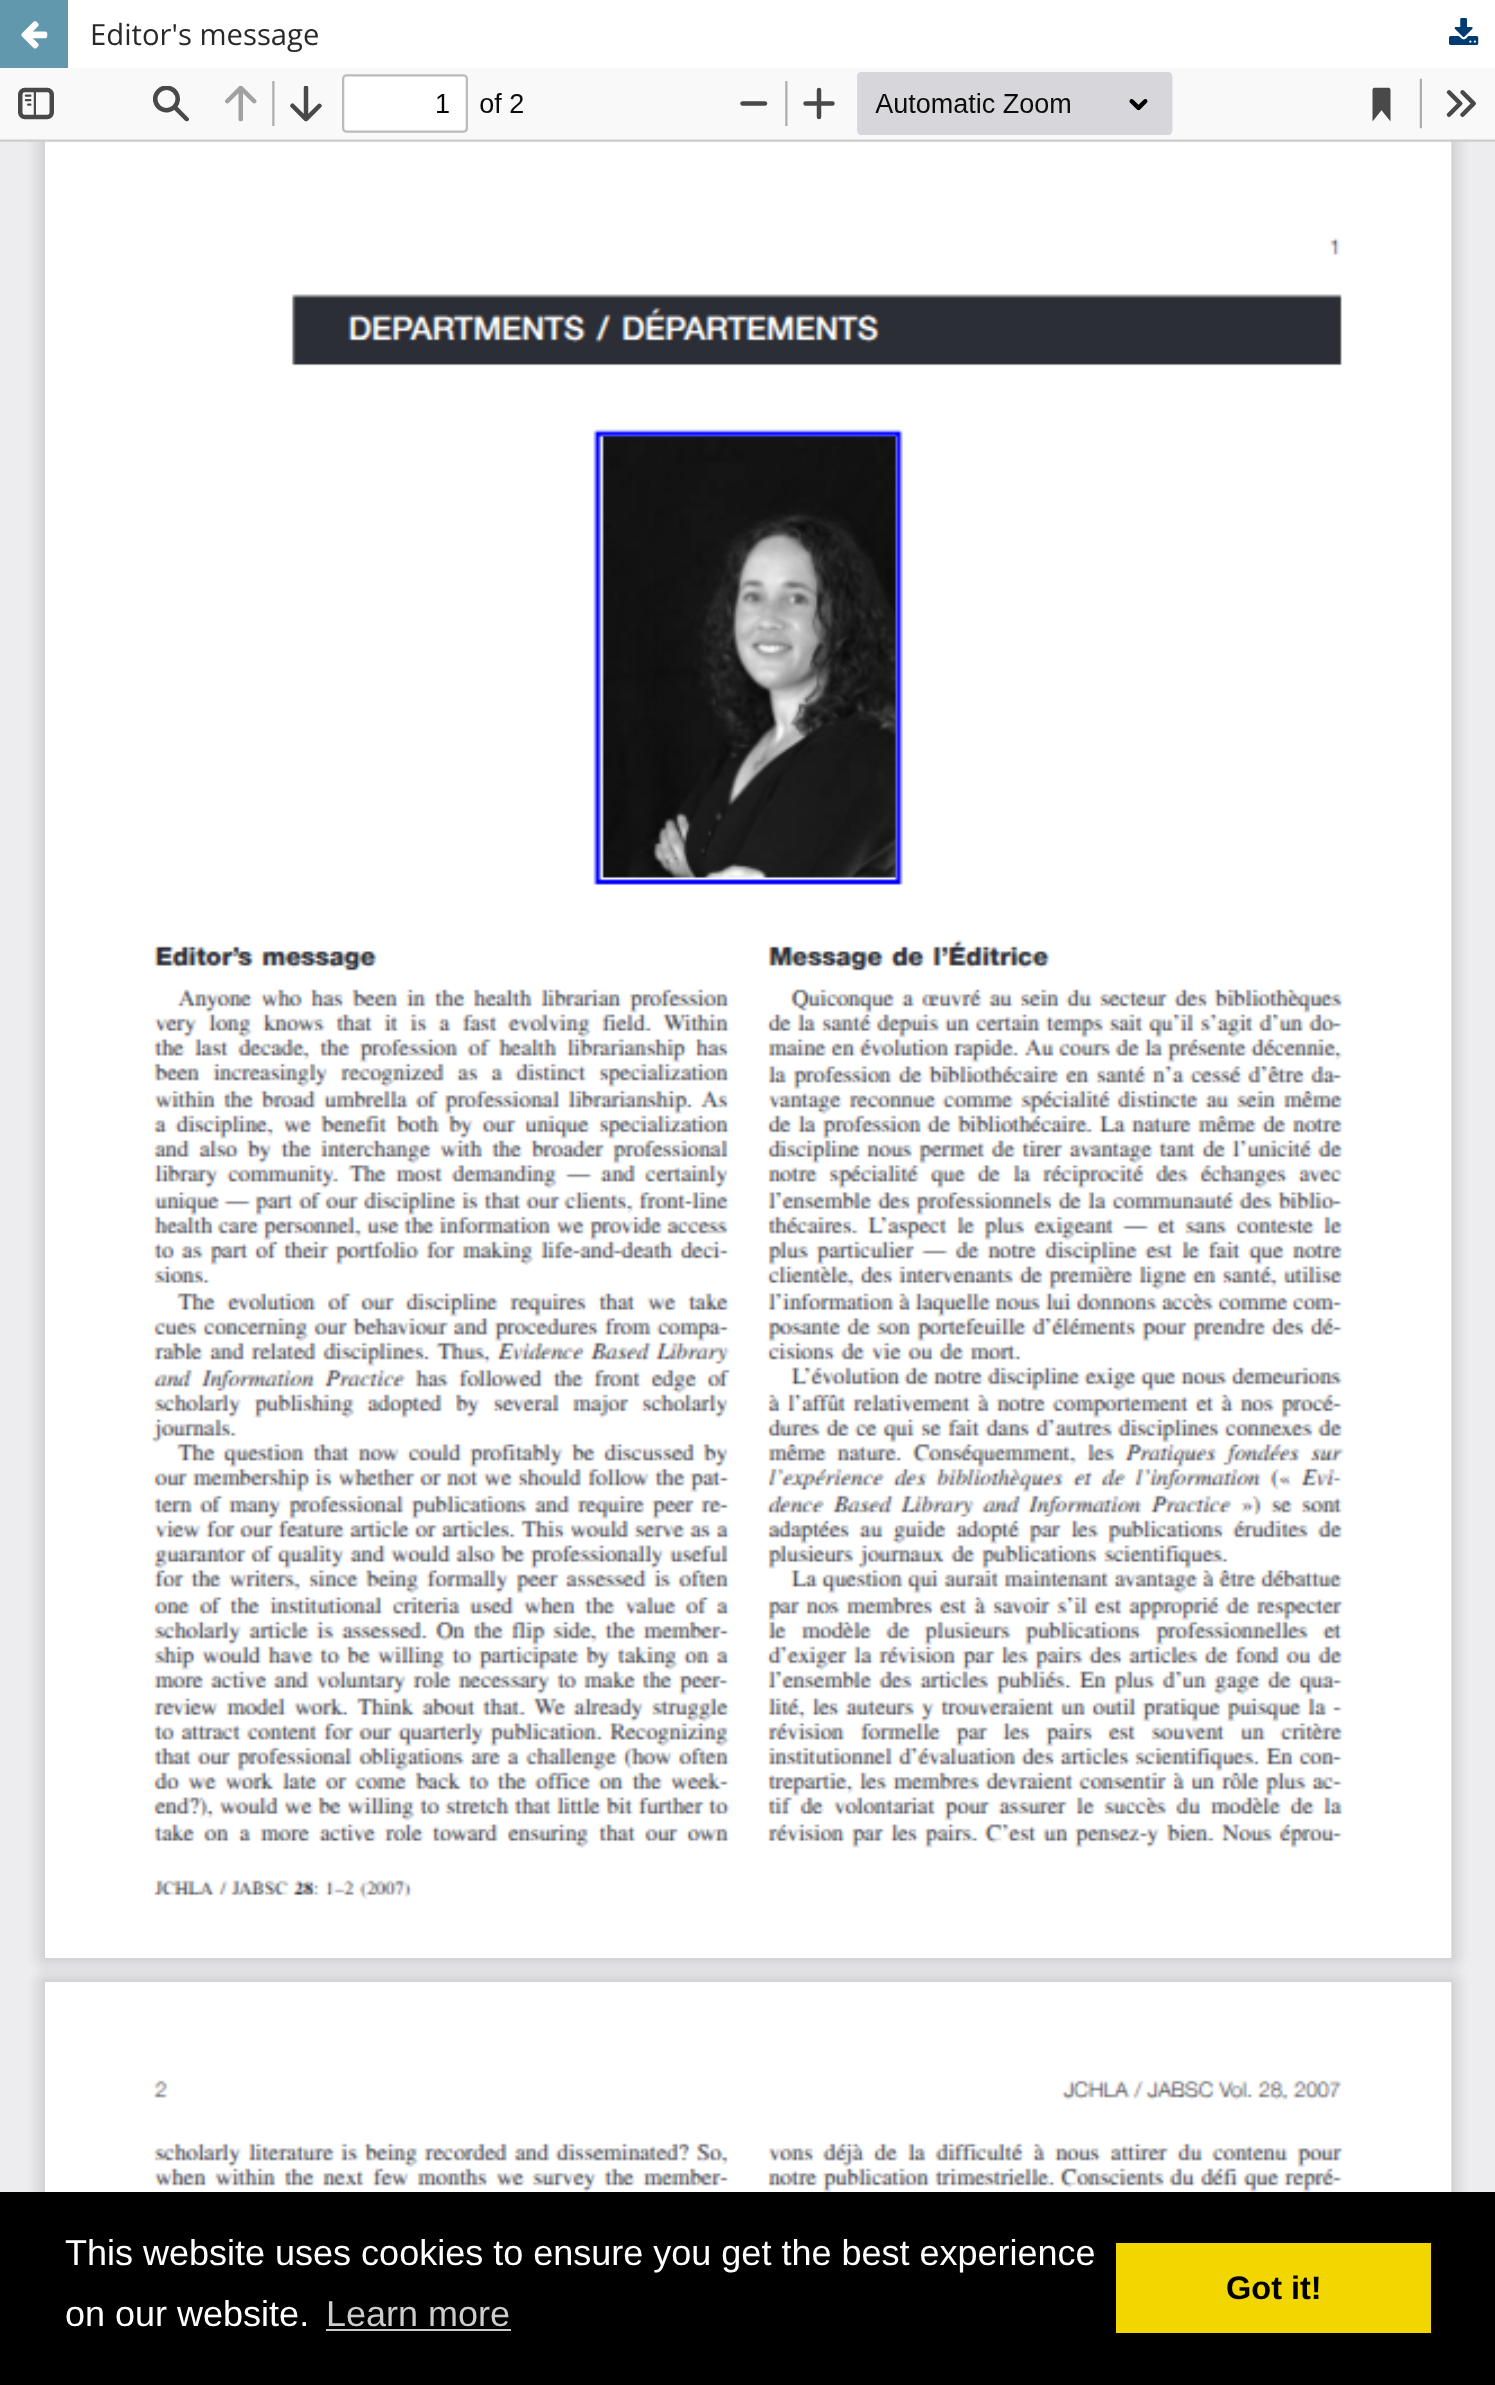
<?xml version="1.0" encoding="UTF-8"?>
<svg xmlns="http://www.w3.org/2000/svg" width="1495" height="2385">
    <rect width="100%" height="100%" fill="#FFFFFF"/>
    <rect x="0" y="0" width="68" height="68" fill="#6298AE"/>
    <image x="21" y="21" width="27" height="28" href="img_01.png"/>
    <text x="90" y="45" font-family="Open Sans" font-size="29.25" fill="#292929">Editor's message</text>
    <image x="1449" y="18" width="30" height="27" href="img_02.png"/>
    <image x="0" y="68" width="1495" height="2124" href="img_03.png"/>
    <rect x="0" y="2192" width="1495" height="193" fill="#000000"/>
    <text font-family="Liberation Sans" font-size="36" fill="#FFFFFF">
        <tspan x="65" y="2265">This website uses cookies to ensure you get the best experience</tspan>
        <tspan x="65" y="2326">on our website.</tspan>
    </text>
    <text x="326" y="2326" font-family="Liberation Sans" font-size="36" fill="#CCCCCC">Learn more</text>
    <rect x="326" y="2329" width="185" height="2" fill="#CCCCCC"/>
    <rect x="1116" y="2243" width="315" height="90" fill="#F1D600"/>
    <text x="1226" y="2299" font-family="Liberation Sans" font-size="32.5" font-weight="700" fill="#000000">Got it!</text>
</svg>
